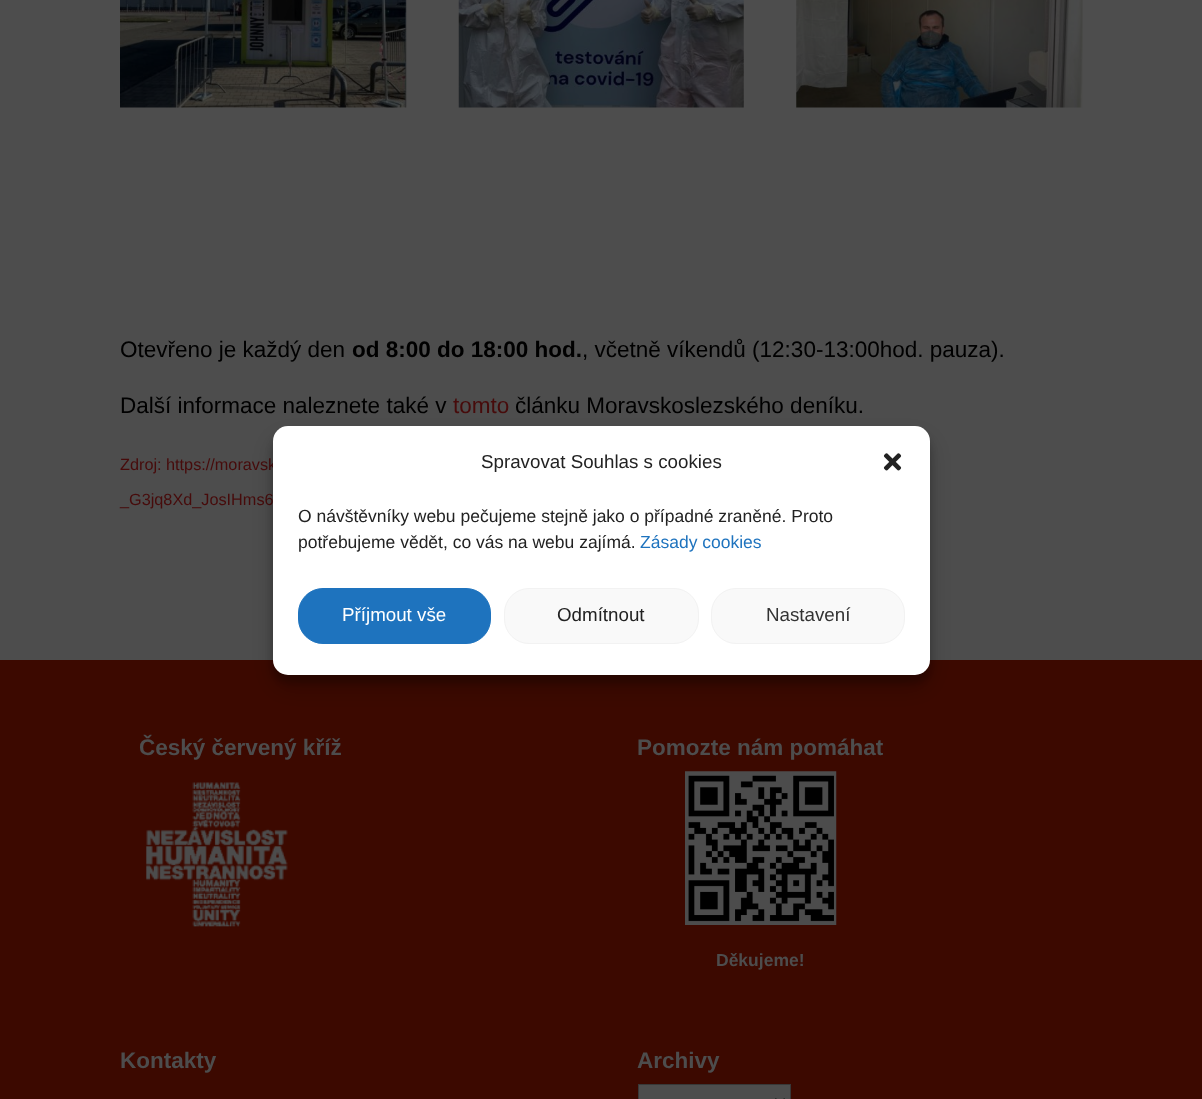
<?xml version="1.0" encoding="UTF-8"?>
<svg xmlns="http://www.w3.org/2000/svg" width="1202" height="1099">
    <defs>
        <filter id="blur1" x="-50%" y="-200%" width="200%" height="500%"><feGaussianBlur stdDeviation="4"/></filter>
        <filter id="blur2" x="-50%" y="-200%" width="200%" height="500%"><feGaussianBlur stdDeviation="12.5"/></filter>
    </defs>
    <rect width="100%" height="100%" fill="#4D4D4D"/>
    <image x="120" y="0" width="287" height="108" href="img_01.png"/>
    <image x="458" y="0" width="286" height="108" href="img_02.png"/>
    <image x="796" y="0" width="287" height="108" href="img_03.png"/>
    <text x="120" y="357" font-family="Liberation Sans" font-size="22.5" fill="#000000">Otevřeno je každý den</text>
    <text x="352" y="357" font-family="Liberation Sans" font-size="22.5" font-weight="700" fill="#000000">od 8:00 do 18:00 hod.</text>
    <text x="582" y="357" font-family="Liberation Sans" font-size="22.5" fill="#000000">, včetně víkendů (12:30-13:00hod. pauza).</text>
    <text x="120" y="413" font-family="Liberation Sans" font-size="22.5" fill="#000000">Další informace naleznete také v</text>
    <text x="453" y="413" font-family="Liberation Sans" font-size="22.5" fill="#470B0B">tomto</text>
    <text x="515" y="413" font-family="Liberation Sans" font-size="22.5" fill="#000000">článku Moravskoslezského deníku.</text>
    <text x="120" y="470" font-family="Liberation Sans" font-size="16.25" fill="#470B0B">Zdroj: https://moravsk</text>
    <text x="120" y="505" font-family="Liberation Sans" font-size="16.25" fill="#470B0B">_G3jq8Xd_JosIHms6</text>
    <rect x="0" y="660" width="1202" height="439" fill="#3C0900"/>
    <text x="139" y="755" font-family="Liberation Sans" font-size="22.5" font-weight="700" fill="#4D4D4D">Český červený kříž</text>
    <image x="146" y="782" width="142" height="145" href="img_04.png"/>
    <text x="637" y="755" font-family="Liberation Sans" font-size="22.5" font-weight="700" fill="#4D4D4D">Pomozte nám pomáhat</text>
    <image x="685" y="771" width="152" height="154" href="img_05.png"/>
    <text x="716" y="966" font-family="Liberation Sans" font-size="17.5" font-weight="700" fill="#4D4D4D">Děkujeme!</text>
    <text x="120" y="1068" font-family="Liberation Sans" font-size="22.5" font-weight="700" fill="#4D4D4D">Kontakty</text>
    <text x="637" y="1068" font-family="Liberation Sans" font-size="22.5" font-weight="700" fill="#4D4D4D">Archivy</text>
    <rect x="638.5" y="1084.5" width="152" height="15" fill="#4D4D4D" stroke="#383838"/>
    <path d="M 775 1099 L 780 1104 L 785 1099" fill="none" stroke="#171717" stroke-width="2.5"/>
    <rect x="273" y="434" width="657" height="249" rx="15" fill="#000000" fill-opacity="0.23" filter="url(#blur1)"/>
    <rect x="273" y="439" width="657" height="249" rx="15" fill="#000000" fill-opacity="0.19" filter="url(#blur2)"/>
    <rect x="273" y="426" width="657" height="249" rx="15" fill="#FFFFFF"/>
    <text x="481" y="468" font-family="Liberation Sans" font-size="18.75" fill="#222222">Spravovat Souhlas s cookies</text>
    <image x="883" y="453" width="19" height="18" href="img_06.png"/>
    <text font-family="Liberation Sans" font-size="17.5" fill="#222222">
        <tspan x="298" y="522">O návštěvníky webu pečujeme stejně jako o případné zraněné. Proto</tspan>
        <tspan x="298" y="548">potřebujeme vědět, co vás na webu zajímá.</tspan>
    </text>
    <text x="640" y="548" font-family="Liberation Sans" font-size="17.5" fill="#1E73BE">Zásady cookies</text>
    <rect x="298.5" y="588.5" width="192" height="55" rx="24.5" fill="#1E73BE" stroke="#1E73BE"/>
    <text x="342" y="621" font-family="Liberation Sans" font-size="18.75" fill="#FFFFFF">Příjmout vše</text>
    <rect x="504.5" y="588.5" width="194" height="55" rx="24.5" fill="#F9F9F9" stroke="#F2F2F2"/>
    <text x="557" y="621" font-family="Liberation Sans" font-size="18.75" fill="#222222">Odmítnout</text>
    <rect x="711.5" y="588.5" width="193" height="55" rx="24.5" fill="#F9F9F9" stroke="#F2F2F2"/>
    <text x="766" y="621" font-family="Liberation Sans" font-size="18.75" fill="#333333">Nastavení</text>
</svg>
